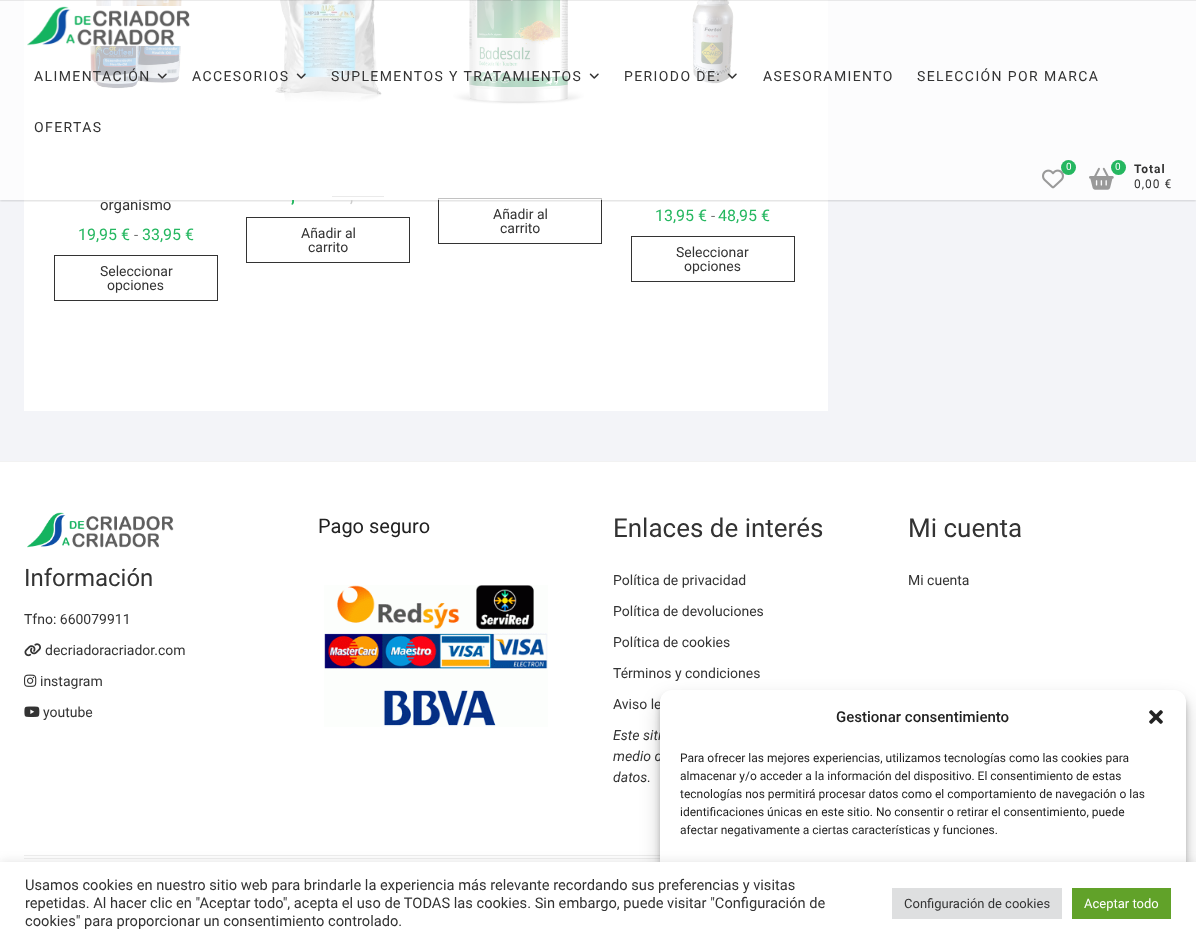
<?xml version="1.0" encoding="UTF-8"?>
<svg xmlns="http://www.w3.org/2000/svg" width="1196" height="944">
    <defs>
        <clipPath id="clip1"><rect x="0" y="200" width="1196" height="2"/></clipPath>
        <filter id="blur1" x="-50%" y="-200%" width="200%" height="500%"><feGaussianBlur stdDeviation="1"/></filter>
        <filter id="blur2" x="-50%" y="-200%" width="200%" height="500%"><feGaussianBlur stdDeviation="3"/></filter>
        <filter id="blur3" x="-50%" y="-200%" width="200%" height="500%"><feGaussianBlur stdDeviation="10"/></filter>
        <filter id="blur4" x="-50%" y="-200%" width="200%" height="500%"><feGaussianBlur stdDeviation="5"/></filter>
    </defs>
    <rect width="100%" height="100%" fill="#F3F4F8"/>
    <rect x="24" y="0" width="804" height="411" fill="#FFFFFF"/>
    <image x="89" y="0" width="94" height="89" href="img_08.png"/>
    <image x="275" y="0" width="107" height="102" href="img_09.png"/>
    <rect x="332" y="196" width="52" height="1" fill="#BABABA"/>
    <image x="453" y="0" width="131" height="105" href="img_10.png"/>
    <rect x="438.5" y="198.5" width="163" height="45" fill="none" stroke="#333333"/>
    <image x="692" y="0" width="42" height="84" href="img_11.png"/>
    <g clip-path="url(#clip1)">
        <rect x="0" y="1" width="1196" height="200" fill="#000000" fill-opacity="0.15" filter="url(#blur1)"/>
    </g>
    <text x="100" y="210" font-family="Roboto" font-size="15" fill="#333333">organismo</text>
    <rect x="0" y="0" width="1196" height="200" fill="#FFFFFF" fill-opacity="0.7"/>
    <rect x="0" y="0" width="1196" height="1" fill="#000000" fill-opacity="0.08"/>
    <image x="27" y="6" width="163" height="40" href="img_01.png"/>
    <text x="34" y="81" font-family="Roboto" font-size="14" letter-spacing="1.4" fill="#333333">ALIMENTACIÓN</text>
    <image x="157" y="73" width="10" height="6" href="img_02.png"/>
    <text x="192" y="81" font-family="Roboto" font-size="14" letter-spacing="1.4" fill="#333333">ACCESORIOS</text>
    <image x="296" y="73" width="10" height="6" href="img_03.png"/>
    <text x="331" y="81" font-family="Roboto" font-size="14" letter-spacing="1.4" fill="#333333">SUPLEMENTOS Y TRATAMIENTOS</text>
    <image x="589" y="73" width="10" height="6" href="img_04.png"/>
    <text x="624" y="81" font-family="Roboto" font-size="14" letter-spacing="1.4" fill="#333333">PERIODO DE:</text>
    <image x="727" y="73" width="10" height="6" href="img_05.png"/>
    <text x="763" y="81" font-family="Roboto" font-size="14" letter-spacing="1.4" fill="#333333">ASESORAMIENTO</text>
    <text x="917" y="81" font-family="Roboto" font-size="14" letter-spacing="1.4" fill="#333333">SELECCIÓN POR MARCA</text>
    <text x="34" y="132" font-family="Roboto" font-size="14" letter-spacing="1.4" fill="#333333">OFERTAS</text>
    <image x="1042" y="169" width="22" height="20" href="img_06.png"/>
    <circle cx="1068.5" cy="167.5" r="7.5" fill="#25B760"/>
    <text x="1066" y="170" font-family="Roboto" font-size="10" fill="#FFFFFF">0</text>
    <image x="1089" y="167" width="25" height="23" href="img_07.png"/>
    <circle cx="1118.5" cy="167.5" r="7.5" fill="#25B760"/>
    <text x="1115" y="170" font-family="Roboto" font-size="10" fill="#FFFFFF">0</text>
    <text x="1134" y="173" font-family="Roboto" font-size="12" font-weight="700" letter-spacing="1" fill="#333333">Total</text>
    <text x="1134" y="188" font-family="Roboto" font-size="12" letter-spacing="1" fill="#333333">0,00 €</text>
    <text x="78" y="240" font-family="Roboto" font-size="16" fill="#25B760">19,95 €</text>
    <text x="134" y="240" font-family="Roboto" font-size="15" fill="#747474">-</text>
    <text x="142" y="240" font-family="Roboto" font-size="16" fill="#25B760">33,95 €</text>
    <rect x="54.5" y="255.5" width="163" height="45" fill="none" stroke="#333333"/>
    <text x="100" y="276" font-family="Roboto" font-size="14" fill="#333333">Seleccionar</text>
    <text x="107" y="290" font-family="Roboto" font-size="14" fill="#333333">opciones</text>
    <text x="291" y="202" font-family="Roboto" font-size="16" font-weight="700" fill="#25B760">,</text>
    <text x="350" y="202" font-family="Roboto" font-size="16" fill="#CCCCCC">,</text>
    <rect x="246.5" y="217.5" width="163" height="45" fill="none" stroke="#333333"/>
    <text x="301" y="238" font-family="Roboto" font-size="14" fill="#333333">Añadir al</text>
    <text x="308" y="252" font-family="Roboto" font-size="14" fill="#333333">carrito</text>
    <text x="493" y="219" font-family="Roboto" font-size="14" fill="#333333">Añadir al</text>
    <text x="500" y="233" font-family="Roboto" font-size="14" fill="#333333">carrito</text>
    <text x="655" y="221" font-family="Roboto" font-size="16" fill="#25B760">13,95 €</text>
    <text x="711" y="221" font-family="Roboto" font-size="15" fill="#747474">-</text>
    <text x="718" y="221" font-family="Roboto" font-size="16" fill="#25B760">48,95 €</text>
    <rect x="631.5" y="236.5" width="163" height="45" fill="none" stroke="#333333"/>
    <text x="676" y="257" font-family="Roboto" font-size="14" fill="#333333">Seleccionar</text>
    <text x="684" y="271" font-family="Roboto" font-size="14" fill="#333333">opciones</text>
    <rect x="0" y="462" width="1196" height="400" fill="#FFFFFF"/>
    <rect x="0" y="461" width="1196" height="1" fill="#F2F2F2"/>
    <text x="318" y="533" font-family="Roboto" font-size="20" fill="#222222">Pago seguro</text>
    <image x="324" y="585" width="224" height="142" href="img_12.png"/>
    <text x="613" y="537" font-family="Roboto" font-size="26" fill="#333333">Enlaces de interés</text>
    <text x="613" y="585" font-family="Roboto" font-size="14" fill="#333333">Política de privacidad</text>
    <text x="613" y="616" font-family="Roboto" font-size="14" fill="#333333">Política de devoluciones</text>
    <text x="613" y="647" font-family="Roboto" font-size="14" fill="#333333">Política de cookies</text>
    <text x="613" y="678" font-family="Roboto" font-size="14" fill="#333333">Términos y condiciones</text>
    <text x="613" y="709" font-family="Roboto" font-size="14" fill="#333333">Aviso le</text>
    <text font-family="Roboto" font-size="14" font-style="italic" fill="#333333">
        <tspan x="613" y="740">Este siti</tspan>
        <tspan x="613" y="761">medio d</tspan>
        <tspan x="613" y="782">datos.</tspan>
    </text>
    <text x="908" y="537" font-family="Roboto" font-size="26" fill="#333333">Mi cuenta</text>
    <text x="908" y="585" font-family="Roboto" font-size="14" fill="#333333">Mi cuenta</text>
    <image x="27" y="512" width="147" height="36" href="img_13.png"/>
    <text x="24" y="586" font-family="Roboto" font-size="24" fill="#333333">Información</text>
    <text x="24" y="624" font-family="Roboto" font-size="14" fill="#333333">Tfno: 660079911</text>
    <image x="24" y="643" width="17" height="14" href="img_14.png"/>
    <text x="45" y="655" font-family="Roboto" font-size="14" fill="#333333">decriadoracriador.com</text>
    <image x="24" y="674" width="13" height="13" href="img_15.png"/>
    <text x="40" y="686" font-family="Roboto" font-size="14" fill="#333333">instagram</text>
    <image x="24" y="706" width="16" height="11" href="img_16.png"/>
    <text x="43" y="717" font-family="Roboto" font-size="14" fill="#333333">youtube</text>
    <rect x="24" y="858" width="636" height="1" fill="#EDEDED"/>
    <rect x="24" y="855" width="636" height="1" fill="#EDEDED"/>
    <rect x="660" y="696" width="526" height="244" rx="12" fill="#000000" fill-opacity="0.23" filter="url(#blur2)"/>
    <rect x="660" y="700" width="526" height="244" rx="12" fill="#000000" fill-opacity="0.19" filter="url(#blur3)"/>
    <rect x="660" y="690" width="526" height="244" rx="12" fill="#FFFFFF"/>
    <text x="836" y="722" font-family="Roboto" font-size="15" font-weight="500" fill="#222222">Gestionar consentimiento</text>
    <image x="1149" y="710" width="14" height="14" href="img_17.png"/>
    <text font-family="Roboto" font-size="12" fill="#222222">
        <tspan x="680" y="762">Para ofrecer las mejores experiencias, utilizamos tecnologías como las cookies para</tspan>
        <tspan x="680" y="780">almacenar y/o acceder a la información del dispositivo. El consentimiento de estas</tspan>
        <tspan x="680" y="798">tecnologías nos permitirá procesar datos como el comportamiento de navegación o las</tspan>
        <tspan x="680" y="816">identificaciones únicas en este sitio. No consentir o retirar el consentimiento, puede</tspan>
        <tspan x="680" y="834">afectar negativamente a ciertas características y funciones.</tspan>
    </text>
    <rect x="0" y="861" width="1196" height="82" fill="#ACABAB" fill-opacity="0.3" filter="url(#blur4)"/>
    <rect x="0" y="862" width="1196" height="82" fill="#FFFFFF"/>
    <text font-family="Roboto" font-size="14.67" fill="#333333">
        <tspan x="25" y="890">Usamos cookies en nuestro sitio web para brindarle la experiencia más relevante recordando sus preferencias y visitas</tspan>
        <tspan x="25" y="908">repetidas. Al hacer clic en "Aceptar todo", acepta el uso de TODAS las cookies. Sin embargo, puede visitar "Configuración de</tspan>
        <tspan x="25" y="926">cookies" para proporcionar un consentimiento controlado.</tspan>
    </text>
    <rect x="892" y="888" width="170" height="31" fill="#DEDFE0"/>
    <text x="904" y="908" font-family="Roboto" font-size="13" fill="#333333">Configuración de cookies</text>
    <rect x="1072" y="888" width="99" height="31" fill="#61A229"/>
    <text x="1084" y="908" font-family="Roboto" font-size="13" fill="#FFFFFF">Aceptar todo</text>
</svg>
